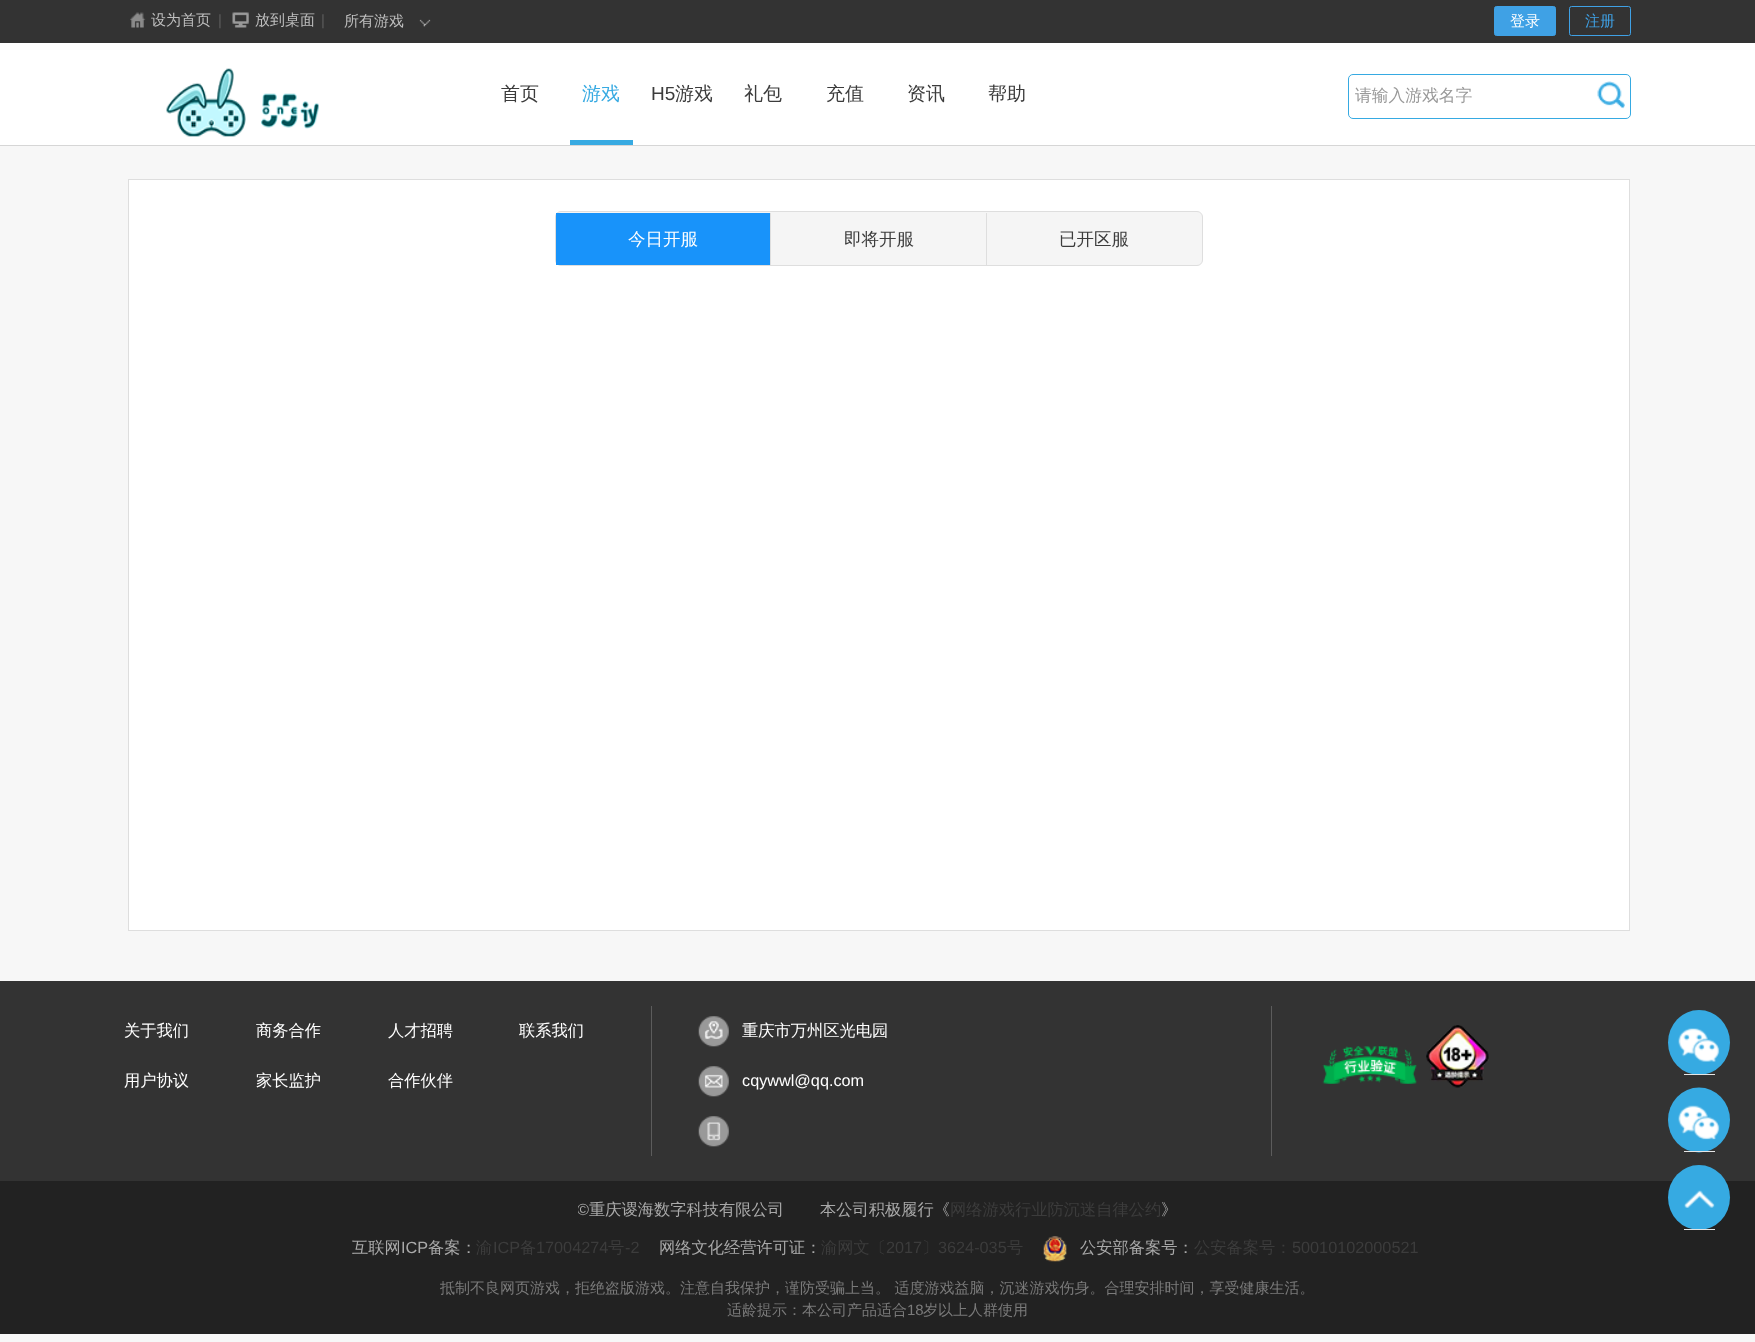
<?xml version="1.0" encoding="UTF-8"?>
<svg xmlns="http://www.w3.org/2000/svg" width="1755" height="1342">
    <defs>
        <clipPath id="clip1"><rect x="578" y="1194" width="206" height="31"/></clipPath>
    </defs>
    <rect width="100%" height="100%" fill="#F7F7F7"/>
    <rect x="0" y="145" width="1755" height="1" fill="#D6D6D6"/>
    <rect x="0" y="0" width="1755" height="43" fill="#333333"/>
    <image x="130" y="12" width="16" height="16" href="img_01.png"/>
    <text x="151" y="25" font-family="WenQuanYi Zen Hei" font-size="15" font-weight="500" fill="#BFBFBF">设为首页</text>
    <text x="218" y="25" font-family="Liberation Sans" font-size="15" fill="#5C5C5C">|</text>
    <image x="232" y="12" width="17" height="16" href="img_02.png"/>
    <text x="255" y="25" font-family="WenQuanYi Zen Hei" font-size="15" font-weight="500" fill="#BFBFBF">放到桌面</text>
    <text x="321" y="25" font-family="Liberation Sans" font-size="15" fill="#5C5C5C">|</text>
    <text x="344" y="26" font-family="WenQuanYi Zen Hei" font-size="15" font-weight="500" fill="#BFBFBF">所有游戏</text>
    <image x="419" y="19" width="12" height="8" href="img_03.png"/>
    <rect x="1494.5" y="6.5" width="61" height="29" rx="2" fill="#3FA1E5" stroke="#3FA1E5"/>
    <text x="1510" y="26" font-family="WenQuanYi Zen Hei" font-size="15" font-weight="500" fill="#FFFFFF">登录</text>
    <rect x="1569.5" y="6.5" width="61" height="29" rx="2" fill="none" stroke="#3FA1E5"/>
    <text x="1585" y="26" font-family="WenQuanYi Zen Hei" font-size="15" font-weight="500" fill="#3FA1E5">注册</text>
    <rect x="0" y="43" width="1755" height="102" fill="#FFFFFF"/>
    <image x="166" y="68" width="153" height="69" href="img_04.png"/>
    <text x="501" y="100" font-family="WenQuanYi Zen Hei" font-size="19" font-weight="500" fill="#3C3C3C">首页</text>
    <text x="582" y="100" font-family="WenQuanYi Zen Hei" font-size="19" font-weight="500" fill="#37AAE2">游戏</text>
    <rect x="570" y="140" width="63" height="5" fill="#37AAE2"/>
    <text x="651" y="100" font-family="Liberation Sans" font-size="19" fill="#3C3C3C">H5</text>
    <text x="675" y="100" font-family="WenQuanYi Zen Hei" font-size="19" font-weight="500" fill="#3C3C3C">游戏</text>
    <text x="744" y="100" font-family="WenQuanYi Zen Hei" font-size="19" font-weight="500" fill="#3C3C3C">礼包</text>
    <text x="826" y="100" font-family="WenQuanYi Zen Hei" font-size="19" font-weight="500" fill="#3C3C3C">充值</text>
    <text x="907" y="100" font-family="WenQuanYi Zen Hei" font-size="19" font-weight="500" fill="#3C3C3C">资讯</text>
    <text x="988" y="100" font-family="WenQuanYi Zen Hei" font-size="19" font-weight="500" fill="#3C3C3C">帮助</text>
    <rect x="1348.5" y="74.5" width="282" height="44" rx="4.5" fill="none" stroke="#36AAE2"/>
    <text x="1355" y="101" font-family="WenQuanYi Zen Hei" font-size="16.75" font-weight="500" fill="#999999">请输入游戏名字</text>
    <image x="1597" y="81" width="28" height="28" href="img_05.png"/>
    <rect x="128.5" y="179.5" width="1501" height="751" fill="#FFFFFF" stroke="#DEDEDE"/>
    <rect x="555.5" y="211.5" width="647" height="54" rx="5.5" fill="#F5F5F5" stroke="#DEDEDE"/>
    <rect x="556" y="213" width="214" height="52" fill="#1893FA"/>
    <rect x="770" y="213" width="1" height="52" fill="#DEDEDE"/>
    <text x="628" y="245" font-family="WenQuanYi Zen Hei" font-size="17.5" font-weight="500" fill="#FFFFFF">今日开服</text>
    <rect x="986" y="213" width="1" height="52" fill="#DEDEDE"/>
    <text x="844" y="245" font-family="WenQuanYi Zen Hei" font-size="17.5" font-weight="500" fill="#3C3C3C">即将开服</text>
    <text x="1059" y="245" font-family="WenQuanYi Zen Hei" font-size="17.5" font-weight="500" fill="#3C3C3C">已开区服</text>
    <rect x="0" y="981" width="1755" height="200" fill="#333333"/>
    <text x="124" y="1036" font-family="WenQuanYi Zen Hei" font-size="16.25" font-weight="500" fill="#FFFFFF">关于我们</text>
    <text x="256" y="1036" font-family="WenQuanYi Zen Hei" font-size="16.25" font-weight="500" fill="#FFFFFF">商务合作</text>
    <text x="388" y="1036" font-family="WenQuanYi Zen Hei" font-size="16.25" font-weight="500" fill="#FFFFFF">人才招聘</text>
    <text x="519" y="1036" font-family="WenQuanYi Zen Hei" font-size="16.25" font-weight="500" fill="#FFFFFF">联系我们</text>
    <text x="124" y="1086" font-family="WenQuanYi Zen Hei" font-size="16.25" font-weight="500" fill="#FFFFFF">用户协议</text>
    <text x="256" y="1086" font-family="WenQuanYi Zen Hei" font-size="16.25" font-weight="500" fill="#FFFFFF">家长监护</text>
    <text x="388" y="1086" font-family="WenQuanYi Zen Hei" font-size="16.25" font-weight="500" fill="#FFFFFF">合作伙伴</text>
    <rect x="1271" y="1006" width="1" height="150" fill="#5C5C5C"/>
    <rect x="651" y="1006" width="1" height="150" fill="#5C5C5C"/>
    <image x="698" y="1016" width="31" height="31" href="img_06.png"/>
    <text x="742" y="1036" font-family="WenQuanYi Zen Hei" font-size="16.25" font-weight="500" fill="#FFFFFF">重庆市万州区光电园</text>
    <image x="698" y="1066" width="31" height="31" href="img_07.png"/>
    <text x="742" y="1086" font-family="Liberation Sans" font-size="16.25" fill="#FFFFFF">cqywwl@qq.com</text>
    <image x="698" y="1116" width="31" height="31" href="img_08.png"/>
    <image x="1322" y="1046" width="95" height="38" href="img_09.png"/>
    <image x="1426" y="1025" width="63" height="63" href="img_10.png"/>
    <rect x="0" y="1181" width="1755" height="153" fill="#222222"/>
    <g clip-path="url(#clip1)">
        <text x="577" y="1215" font-family="Liberation Sans" font-size="16.25" fill="#A9A9A9">©</text>
    </g>
    <text x="589" y="1215" font-family="WenQuanYi Zen Hei" font-size="16.25" font-weight="500" fill="#A9A9A9">重庆谡海数字科技有限公司</text>
    <text x="820" y="1215" font-family="WenQuanYi Zen Hei" font-size="16.25" font-weight="500" fill="#A9A9A9">本公司积极履行《</text>
    <text x="950" y="1215" font-family="WenQuanYi Zen Hei" font-size="16.25" font-weight="500" fill="#3C3C3C">网络游戏行业防沉迷自律公约</text>
    <text x="1161" y="1215" font-family="WenQuanYi Zen Hei" font-size="16.25" font-weight="500" fill="#A9A9A9">》</text>
    <text x="352" y="1253" font-family="WenQuanYi Zen Hei" font-size="16.25" font-weight="500" fill="#A9A9A9">互联网</text>
    <text x="401" y="1253" font-family="Liberation Sans" font-size="16.25" fill="#A9A9A9">ICP</text>
    <text x="428" y="1253" font-family="WenQuanYi Zen Hei" font-size="16.25" font-weight="500" fill="#A9A9A9">备案：</text>
    <text x="476" y="1253" font-family="WenQuanYi Zen Hei" font-size="16.25" font-weight="500" fill="#3C3C3C">渝</text>
    <text x="493" y="1253" font-family="Liberation Sans" font-size="16.25" fill="#3C3C3C">ICP</text>
    <text x="520" y="1253" font-family="WenQuanYi Zen Hei" font-size="16.25" font-weight="500" fill="#3C3C3C">备</text>
    <text x="536" y="1253" font-family="Liberation Sans" font-size="16.25" fill="#3C3C3C">17004274</text>
    <text x="608" y="1253" font-family="WenQuanYi Zen Hei" font-size="16.25" font-weight="500" fill="#3C3C3C">号</text>
    <text x="625" y="1253" font-family="Liberation Sans" font-size="16.25" fill="#3C3C3C">-2</text>
    <text x="659" y="1253" font-family="WenQuanYi Zen Hei" font-size="16.25" font-weight="500" fill="#A9A9A9">网络文化经营许可证：</text>
    <text x="821" y="1253" font-family="WenQuanYi Zen Hei" font-size="16.25" font-weight="500" fill="#3C3C3C">渝网文〔</text>
    <text x="886" y="1253" font-family="Liberation Sans" font-size="16.25" fill="#3C3C3C">2017</text>
    <text x="922" y="1253" font-family="WenQuanYi Zen Hei" font-size="16.25" font-weight="500" fill="#3C3C3C">〕</text>
    <text x="938" y="1253" font-family="Liberation Sans" font-size="16.25" fill="#3C3C3C">3624-035</text>
    <text x="1007" y="1253" font-family="WenQuanYi Zen Hei" font-size="16.25" font-weight="500" fill="#3C3C3C">号</text>
    <image x="1043" y="1236" width="24" height="26" href="img_11.png"/>
    <text x="1080" y="1253" font-family="WenQuanYi Zen Hei" font-size="16.25" font-weight="500" fill="#A9A9A9">公安部备案号：</text>
    <text x="1194" y="1253" font-family="WenQuanYi Zen Hei" font-size="16.25" font-weight="500" fill="#3C3C3C">公安备案号：</text>
    <text x="1292" y="1253" font-family="Liberation Sans" font-size="16.25" fill="#3C3C3C">50010102000521</text>
    <text x="440" y="1293" font-family="WenQuanYi Zen Hei" font-size="15" font-weight="500" fill="#7A7A7A">抵制不良网页游戏，拒绝盗版游戏。注意自我保护，谨防受骗上当。 适度游戏益脑，沉迷游戏伤身。合理安排时间，享受健康生活。</text>
    <text x="727" y="1315" font-family="WenQuanYi Zen Hei" font-size="15" font-weight="500" fill="#7A7A7A">适龄提示：本公司产品适合</text>
    <text x="907" y="1315" font-family="Liberation Sans" font-size="15" fill="#7A7A7A">18</text>
    <text x="923" y="1315" font-family="WenQuanYi Zen Hei" font-size="15" font-weight="500" fill="#7A7A7A">岁以上人群使用</text>
    <ellipse cx="1699" cy="1042.5" rx="31" ry="32.5" fill="#36AAE2"/>
    <rect x="1684" y="1074" width="31" height="1" fill="#E5E5E5"/>
    <image x="1678" y="1028" width="42" height="34" href="img_12.png"/>
    <ellipse cx="1699" cy="1120" rx="31" ry="32.5" fill="#36AAE2"/>
    <rect x="1684" y="1151" width="31" height="1" fill="#E5E5E5"/>
    <image x="1678" y="1105" width="42" height="35" href="img_13.png"/>
    <ellipse cx="1699" cy="1197.5" rx="31" ry="32.5" fill="#36AAE2"/>
    <rect x="1684" y="1229" width="31" height="1" fill="#E5E5E5"/>
    <image x="1684" y="1190" width="31" height="18" href="img_14.png"/>
</svg>
